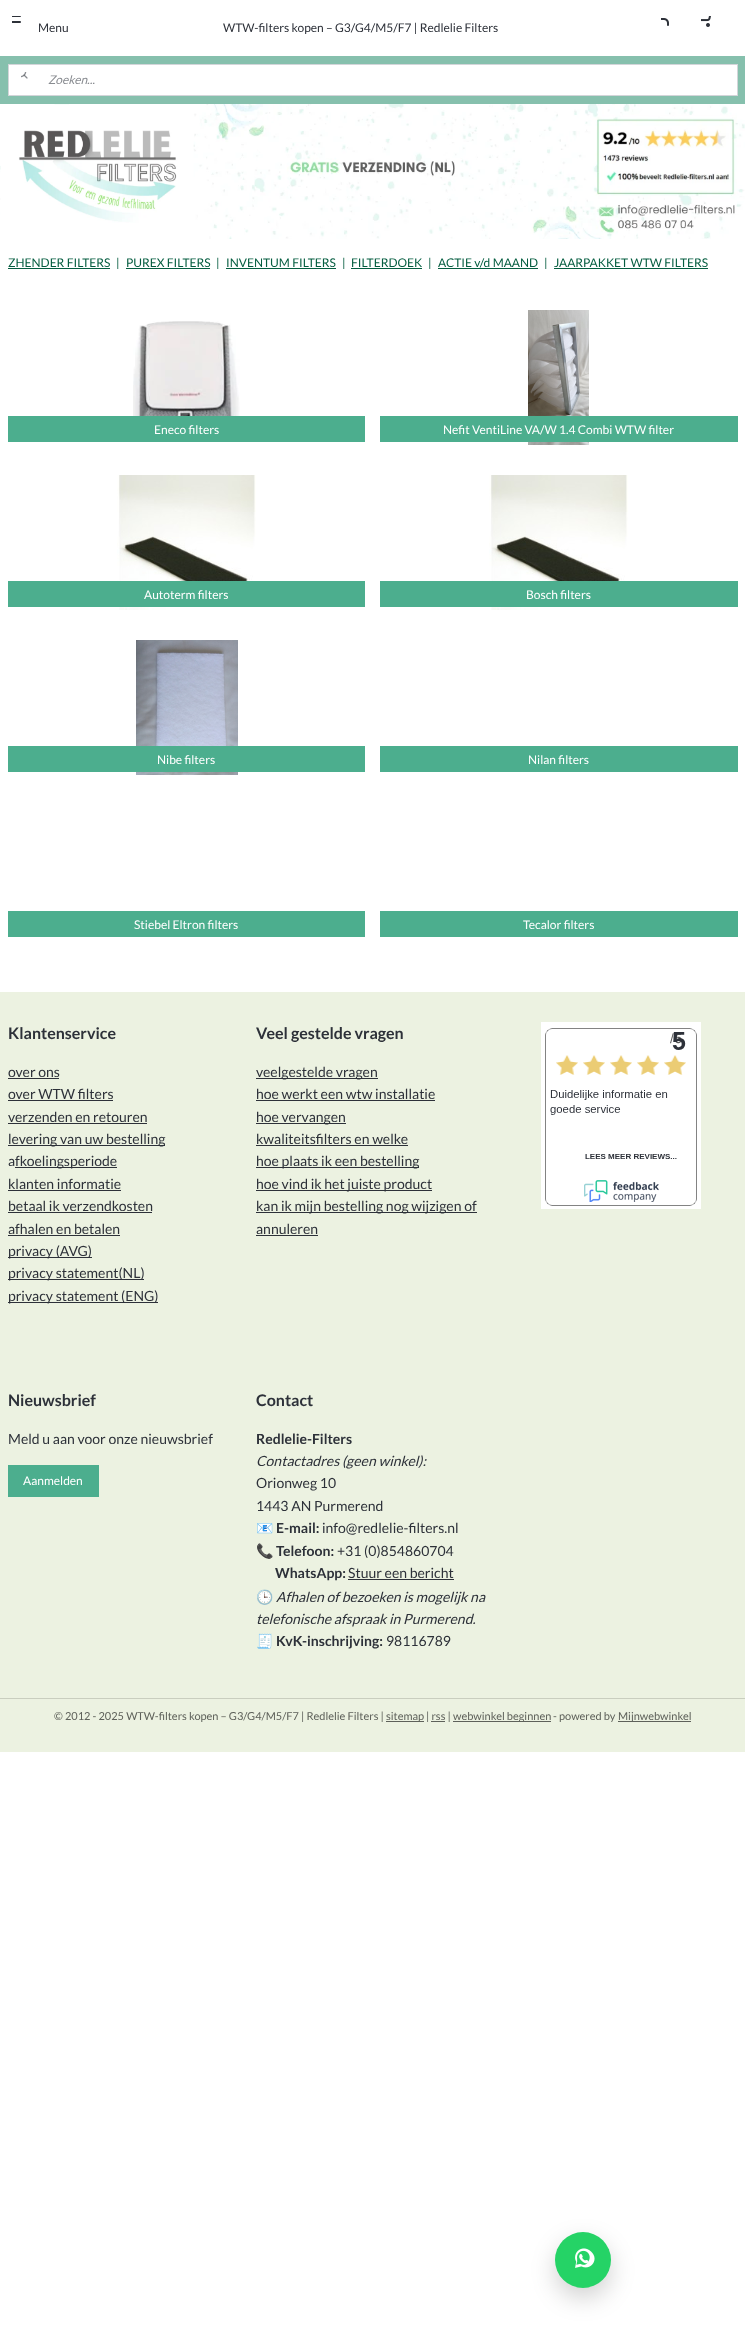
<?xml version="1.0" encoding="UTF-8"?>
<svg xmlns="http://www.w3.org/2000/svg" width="745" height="2344">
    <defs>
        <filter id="blur1" x="-50%" y="-200%" width="200%" height="500%"><feGaussianBlur stdDeviation="12"/></filter>
    </defs>
    <rect width="100%" height="100%" fill="#FFFFFF"/>
    <image x="12" y="16" width="9" height="7" href="img_01.png"/>
    <text x="38" y="32" font-family="Lato" font-size="12" fill="#2D3139">Menu</text>
    <text x="223" y="32" font-family="Lato" font-size="12" fill="#2D3139">WTW-filters kopen – G3/G4/M5/F7 | Redlelie Filters</text>
    <image x="661" y="18" width="8" height="8" href="img_02.png"/>
    <image x="701" y="16" width="10" height="11" href="img_03.png"/>
    <rect x="0" y="56" width="745" height="48" fill="#86C0AD"/>
    <rect x="8.5" y="64.5" width="729" height="31" fill="#FFFFFF" stroke="#D3D5D9"/>
    <image x="21" y="72" width="7" height="7" href="img_04.png"/>
    <text x="48" y="84" font-family="Lato" font-size="12" font-style="italic" fill="#898C91">Zoeken...</text>
    <image x="0" y="104" width="745" height="135" href="img_05.png"/>
    <image x="0" y="104" width="194" height="135" href="img_06.png"/>
    <text x="8" y="267" font-family="Lato" font-size="12" fill="#055D40">ZHENDER FILTERS</text>
    <rect x="8" y="268" width="102" height="1" fill="#055D40"/>
    <text x="116" y="267" font-family="Lato" font-size="12" fill="#055D40">|</text>
    <text x="126" y="267" font-family="Lato" font-size="12" fill="#055D40">PUREX FILTERS</text>
    <rect x="126" y="268" width="84" height="1" fill="#055D40"/>
    <text x="216" y="267" font-family="Lato" font-size="12" fill="#055D40">|</text>
    <text x="226" y="267" font-family="Lato" font-size="12" fill="#055D40">INVENTUM FILTERS</text>
    <rect x="226" y="268" width="110" height="1" fill="#055D40"/>
    <text x="342" y="267" font-family="Lato" font-size="12" fill="#055D40">|</text>
    <text x="351" y="267" font-family="Lato" font-size="12" fill="#055D40">FILTERDOEK</text>
    <rect x="351" y="268" width="71" height="1" fill="#055D40"/>
    <text x="428" y="267" font-family="Lato" font-size="12" fill="#055D40">|</text>
    <text x="438" y="267" font-family="Lato" font-size="12" fill="#055D40">ACTIE v/d MAAND</text>
    <rect x="438" y="268" width="100" height="1" fill="#055D40"/>
    <text x="544" y="267" font-family="Lato" font-size="12" fill="#055D40">|</text>
    <text x="554" y="267" font-family="Lato" font-size="12" fill="#055D40">JAARPAKKET WTW FILTERS</text>
    <rect x="554" y="268" width="154" height="1" fill="#055D40"/>
    <image x="133" y="321" width="107" height="95" href="img_07.png"/>
    <rect x="8" y="416" width="357" height="26" fill="#4CAE8E"/>
    <text x="154" y="434" font-family="Lato" font-size="12" fill="#FFFFFF">Eneco filters</text>
    <image x="528" y="310" width="61" height="135" href="img_08.png"/>
    <rect x="380" y="416" width="358" height="26" fill="#4CAE8E"/>
    <text x="443" y="434" font-family="Lato" font-size="12" fill="#FFFFFF">Nefit VentiLine VA/W 1.4 Combi WTW filter</text>
    <image x="117" y="475" width="139" height="135" href="img_09.png"/>
    <rect x="8" y="581" width="357" height="26" fill="#4CAE8E"/>
    <text x="144" y="599" font-family="Lato" font-size="12" fill="#FFFFFF">Autoterm filters</text>
    <image x="489" y="475" width="139" height="135" href="img_10.png"/>
    <rect x="380" y="581" width="358" height="26" fill="#4CAE8E"/>
    <text x="526" y="599" font-family="Lato" font-size="12" fill="#FFFFFF">Bosch filters</text>
    <image x="136" y="640" width="102" height="135" href="img_11.png"/>
    <rect x="8" y="746" width="357" height="26" fill="#4CAE8E"/>
    <text x="157" y="764" font-family="Lato" font-size="12" fill="#FFFFFF">Nibe filters</text>
    <rect x="380" y="746" width="358" height="26" fill="#4CAE8E"/>
    <text x="528" y="764" font-family="Lato" font-size="12" fill="#FFFFFF">Nilan filters</text>
    <rect x="8" y="911" width="357" height="26" fill="#4CAE8E"/>
    <text x="134" y="929" font-family="Lato" font-size="12" fill="#FFFFFF">Stiebel Eltron filters</text>
    <rect x="380" y="911" width="358" height="26" fill="#4CAE8E"/>
    <text x="523" y="929" font-family="Lato" font-size="12" fill="#FFFFFF">Tecalor filters</text>
    <rect x="0" y="992" width="745" height="706" fill="#ECF2E1"/>
    <text x="8" y="1039" font-family="Lato" font-size="16" font-weight="700" fill="#2D3139">Klantenservice</text>
    <text x="8" y="1077" font-family="Lato" font-size="14" fill="#2D3139">over ons</text>
    <rect x="8" y="1078" width="51" height="1" fill="#2D3139"/>
    <text x="8" y="1099" font-family="Lato" font-size="14" fill="#2D3139">over WTW filters</text>
    <rect x="8" y="1100" width="105" height="1" fill="#2D3139"/>
    <text x="8" y="1122" font-family="Lato" font-size="14" fill="#2D3139">verzenden en retouren</text>
    <rect x="8" y="1123" width="139" height="1" fill="#2D3139"/>
    <rect x="8" y="1145" width="157" height="1" fill="#2D3139"/>
    <text font-family="Lato" font-size="14" fill="#2D3139">
        <tspan x="8" y="1144">levering van uw bestelling</tspan>
        <tspan x="8" y="1166">a</tspan>
    </text>
    <rect x="15" y="1167" width="102" height="1" fill="#2D3139"/>
    <text x="15" y="1166" font-family="Lato" font-size="14" fill="#2D3139">fkoelingsperiode</text>
    <text x="8" y="1189" font-family="Lato" font-size="14" fill="#2D3139">klanten informatie</text>
    <rect x="8" y="1190" width="113" height="1" fill="#2D3139"/>
    <text x="8" y="1211" font-family="Lato" font-size="14" fill="#2D3139">betaal ik verzendkosten</text>
    <rect x="8" y="1212" width="144" height="1" fill="#2D3139"/>
    <text x="8" y="1234" font-family="Lato" font-size="14" fill="#2D3139">afhalen en betalen</text>
    <rect x="8" y="1235" width="112" height="1" fill="#2D3139"/>
    <rect x="8" y="1257" width="84" height="1" fill="#2D3139"/>
    <text x="8" y="1256" font-family="Lato" font-size="14" fill="#2D3139">privacy (AVG)</text>
    <rect x="8" y="1279" width="136" height="1" fill="#2D3139"/>
    <text x="8" y="1278" font-family="Lato" font-size="14" fill="#2D3139">privacy statement(NL)</text>
    <rect x="8" y="1302" width="150" height="1" fill="#2D3139"/>
    <text x="8" y="1301" font-family="Lato" font-size="14" fill="#2D3139">privacy statement (ENG)</text>
    <text x="256" y="1039" font-family="Lato" font-size="16" font-weight="700" fill="#2D3139">Veel gestelde vragen</text>
    <rect x="256" y="1078" width="122" height="1" fill="#2D3139"/>
    <text font-family="Lato" font-size="14" fill="#2D3139">
        <tspan x="256" y="1077">veelgestelde vragen</tspan>
        <tspan x="256" y="1099">hoe werkt een wtw installatie</tspan>
    </text>
    <rect x="256" y="1100" width="179" height="1" fill="#2D3139"/>
    <rect x="256" y="1123" width="90" height="1" fill="#2D3139"/>
    <text font-family="Lato" font-size="14" fill="#2D3139">
        <tspan x="256" y="1122">hoe vervangen</tspan>
        <tspan x="256" y="1144">kwaliteitsfilters en welke</tspan>
    </text>
    <rect x="256" y="1145" width="152" height="1" fill="#2D3139"/>
    <rect x="256" y="1167" width="163" height="1" fill="#2D3139"/>
    <text x="256" y="1166" font-family="Lato" font-size="14" fill="#2D3139">hoe plaats ik een bestelling</text>
    <rect x="256" y="1190" width="176" height="1" fill="#2D3139"/>
    <text x="256" y="1189" font-family="Lato" font-size="14" fill="#2D3139">hoe vind ik het juiste product</text>
    <rect x="256" y="1212" width="221" height="1" fill="#2D3139"/>
    <text font-family="Lato" font-size="14" fill="#2D3139">
        <tspan x="256" y="1211">kan ik mijn bestelling nog wijzigen of</tspan>
        <tspan x="256" y="1234">annuleren</tspan>
    </text>
    <rect x="256" y="1235" width="62" height="1" fill="#2D3139"/>
    <image x="541" y="1022" width="160" height="187" href="img_12.png"/>
    <text x="8" y="1406" font-family="Lato" font-size="16" font-weight="700" fill="#2D3139">Nieuwsbrief</text>
    <text x="8" y="1444" font-family="Lato" font-size="14" fill="#2D3139">Meld u aan voor onze nieuwsbrief</text>
    <rect x="8" y="1465" width="91" height="32" fill="#4CAE8E"/>
    <text x="23" y="1485" font-family="Lato" font-size="12" fill="#FFFFFF">Aanmelden</text>
    <text x="256" y="1406" font-family="Lato" font-size="16" font-weight="700" fill="#2D3139">Contact</text>
    <text x="256" y="1444" font-family="Lato" font-size="14" font-weight="700" fill="#2D3139">Redlelie-Filters</text>
    <text x="256" y="1466" font-family="Lato" font-size="14" font-style="italic" fill="#2D3139">Contactadres (geen winkel):</text>
    <text font-family="Lato" font-size="14" fill="#2D3139">
        <tspan x="256" y="1488">Orionweg 10</tspan>
        <tspan x="256" y="1511">1443 AN Purmerend</tspan>
    </text>
    <text x="256" y="1533" font-family="Noto Color Emoji" font-size="14" fill="#2D3139">📧</text>
    <text x="276" y="1533" font-family="Lato" font-size="14" font-weight="700" fill="#2D3139">E-mail:</text>
    <text x="322" y="1533" font-family="Lato" font-size="14" fill="#2D3139">info@redlelie-filters.nl</text>
    <text x="256" y="1556" font-family="Noto Color Emoji" font-size="14" fill="#2D3139">📞</text>
    <text x="276" y="1556" font-family="Lato" font-size="14" font-weight="700" fill="#2D3139">Telefoon:</text>
    <text x="337" y="1556" font-family="Lato" font-size="14" fill="#2D3139">+31 (0)854860704</text>
    <text x="275" y="1578" font-family="Lato" font-size="14" font-weight="700" fill="#2D3139">WhatsApp:</text>
    <text x="348" y="1578" font-family="Lato" font-size="14" fill="#2D3139">Stuur een bericht</text>
    <rect x="348" y="1579" width="106" height="1" fill="#2D3139"/>
    <text x="256" y="1602" font-family="Noto Color Emoji" font-size="14" fill="#2D3139">🕒</text>
    <text x="276" y="1602" font-family="Lato" font-size="14" font-style="italic" fill="#2D3139">Afhalen of bezoeken is mogelijk na</text>
    <text x="256" y="1624" font-family="Lato" font-size="14" font-style="italic" fill="#2D3139">telefonische afspraak in Purmerend.</text>
    <text x="256" y="1646" font-family="Noto Color Emoji" font-size="14" fill="#2D3139">🧾</text>
    <text x="276" y="1646" font-family="Lato" font-size="14" font-weight="700" fill="#2D3139">KvK-inschrijving:</text>
    <text x="386" y="1646" font-family="Lato" font-size="14" fill="#2D3139">98116789</text>
    <rect x="0" y="1699" width="745" height="53" fill="#ECF2E1"/>
    <rect x="0" y="1698" width="745" height="1" fill="#C9CEBF"/>
    <text x="54" y="1720" font-family="Lato" font-size="11" fill="#5E615A">© 2012 - 2025 WTW-filters kopen – G3/G4/M5/F7 | Redlelie Filters |</text>
    <rect x="386" y="1721" width="38" height="1" fill="#5E615A"/>
    <text x="386" y="1720" font-family="Lato" font-size="11" fill="#5E615A">sitemap</text>
    <text x="426" y="1720" font-family="Lato" font-size="11" fill="#5E615A">| rss |</text>
    <rect x="453" y="1721" width="98" height="1" fill="#5E615A"/>
    <text x="453" y="1720" font-family="Lato" font-size="11" fill="#5E615A">webwinkel beginnen</text>
    <text x="553" y="1720" font-family="Lato" font-size="11" fill="#5E615A">- powered by</text>
    <rect x="618" y="1721" width="73" height="1" fill="#5E615A"/>
    <text x="618" y="1720" font-family="Lato" font-size="11" fill="#5E615A">Mijnwebwinkel</text>
    <rect x="431" y="1721" width="14" height="1" fill="#5E615A"/>
    <rect x="555" y="2242" width="56" height="56" rx="28" fill="#000000" fill-opacity="0.18" filter="url(#blur1)"/>
    <circle cx="583" cy="2260" r="28" fill="#25D366"/>
    <image x="575" y="2248" width="20" height="20" href="img_13.png"/>
</svg>
